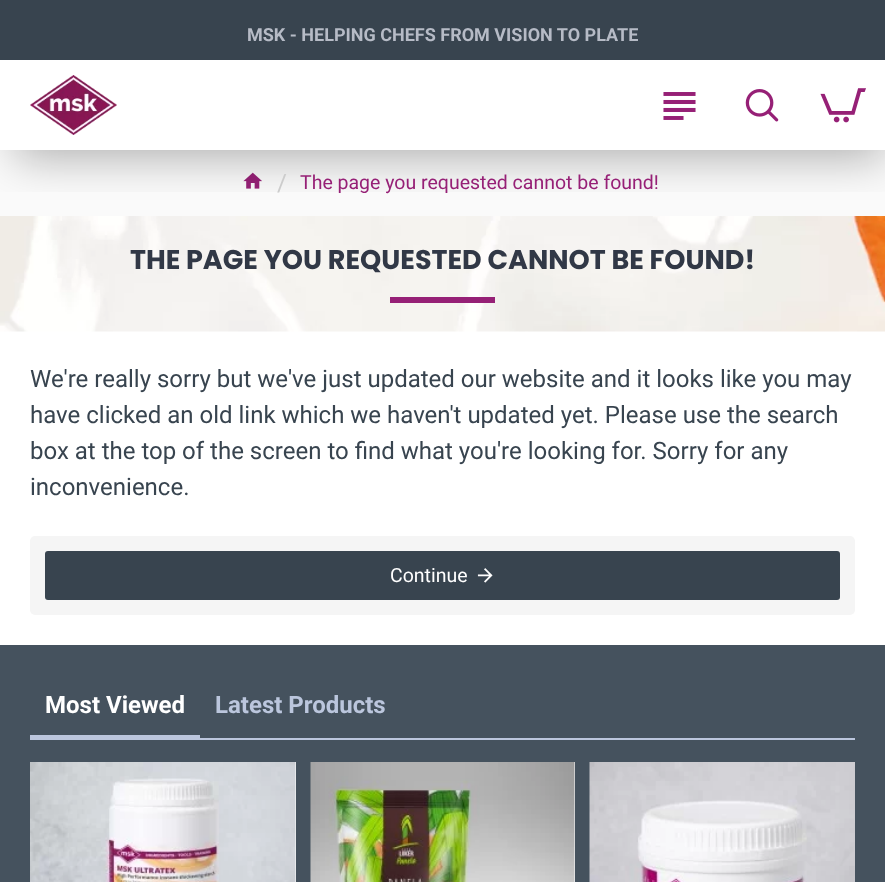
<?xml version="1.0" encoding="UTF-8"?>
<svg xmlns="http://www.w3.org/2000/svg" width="885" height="882">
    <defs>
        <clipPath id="clip1"><rect x="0" y="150" width="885" height="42"/></clipPath>
        <filter id="blur1" x="-50%" y="-200%" width="200%" height="500%"><feGaussianBlur stdDeviation="22.5"/></filter>
        <clipPath id="clip2"><rect x="248" y="23" width="390" height="27"/></clipPath>
    </defs>
    <rect width="100%" height="100%" fill="#FFFFFF"/>
    <rect x="0" y="150" width="885" height="66" fill="#FAFAFA"/>
    <image x="243" y="172" width="19" height="17" href="img_05.png"/>
    <image x="0" y="216" width="885" height="116" href="img_06.png"/>
    <g clip-path="url(#clip1)">
        <rect x="15" y="83" width="870" height="75" fill="#000000" fill-opacity="0.3" filter="url(#blur1)"/>
    </g>
    <image x="30" y="75" width="87" height="60" href="img_01.png"/>
    <image x="663" y="92" width="33" height="28" href="img_02.png"/>
    <image x="745" y="89" width="34" height="33" href="img_03.png"/>
    <image x="820" y="88" width="46" height="35" href="img_04.png"/>
    <rect x="0" y="0" width="885" height="60" fill="#38444F"/>
    <g clip-path="url(#clip2)">
        <text x="247" y="41" font-family="Roboto" font-size="18" font-weight="700" fill="#B6BBC6">MSK - HELPING CHEFS FROM VISION TO PLATE</text>
    </g>
    <text x="277" y="191" font-family="Roboto" font-size="24" fill="#CCCCCC">/</text>
    <text x="300" y="189" font-family="Roboto" font-size="19.5" fill="#962076">The page you requested cannot be found!</text>
    <text x="130" y="269" font-family="Poppins" font-size="27" font-weight="700" fill="#313846">THE PAGE YOU REQUESTED CANNOT BE FOUND!</text>
    <rect x="390" y="297" width="105" height="6" fill="#962076"/>
    <text font-family="Roboto" font-size="24" fill="#38444F">
        <tspan x="30" y="387">We're really sorry but we've just updated our website and it looks like you may</tspan>
        <tspan x="30" y="423">have clicked an old link which we haven't updated yet. Please use the search</tspan>
        <tspan x="30" y="459">box at the top of the screen to find what you're looking for. Sorry for any</tspan>
        <tspan x="30" y="495">inconvenience.</tspan>
    </text>
    <rect x="30" y="536" width="825" height="79" rx="5" fill="#F5F5F5"/>
    <rect x="45" y="551" width="795" height="49" rx="3" fill="#38444F"/>
    <text x="390" y="582" font-family="Roboto" font-size="19.5" fill="#FFFFFF">Continue</text>
    <image x="477" y="568" width="16" height="15" href="img_07.png"/>
    <rect x="0" y="645" width="885" height="237" fill="#45525E"/>
    <rect x="30" y="738" width="825" height="2" fill="#BBC6DD"/>
    <rect x="30" y="735" width="170" height="3" fill="#BBC6DD"/>
    <text x="45" y="713" font-family="Roboto" font-size="24" font-weight="700" fill="#FFFFFF">Most Viewed</text>
    <text x="215" y="713" font-family="Roboto" font-size="24" font-weight="700" fill="#BBC6DD">Latest Products</text>
    <rect x="295" y="762" width="1" height="120" fill="#FFFFFF"/>
    <image x="30" y="762" width="266" height="120" href="img_08.png"/>
    <rect x="574" y="762" width="1" height="120" fill="#FFFFFF"/>
    <image x="310" y="762" width="265" height="120" href="img_09.png"/>
    <image x="589" y="762" width="266" height="120" href="img_10.png"/>
</svg>
